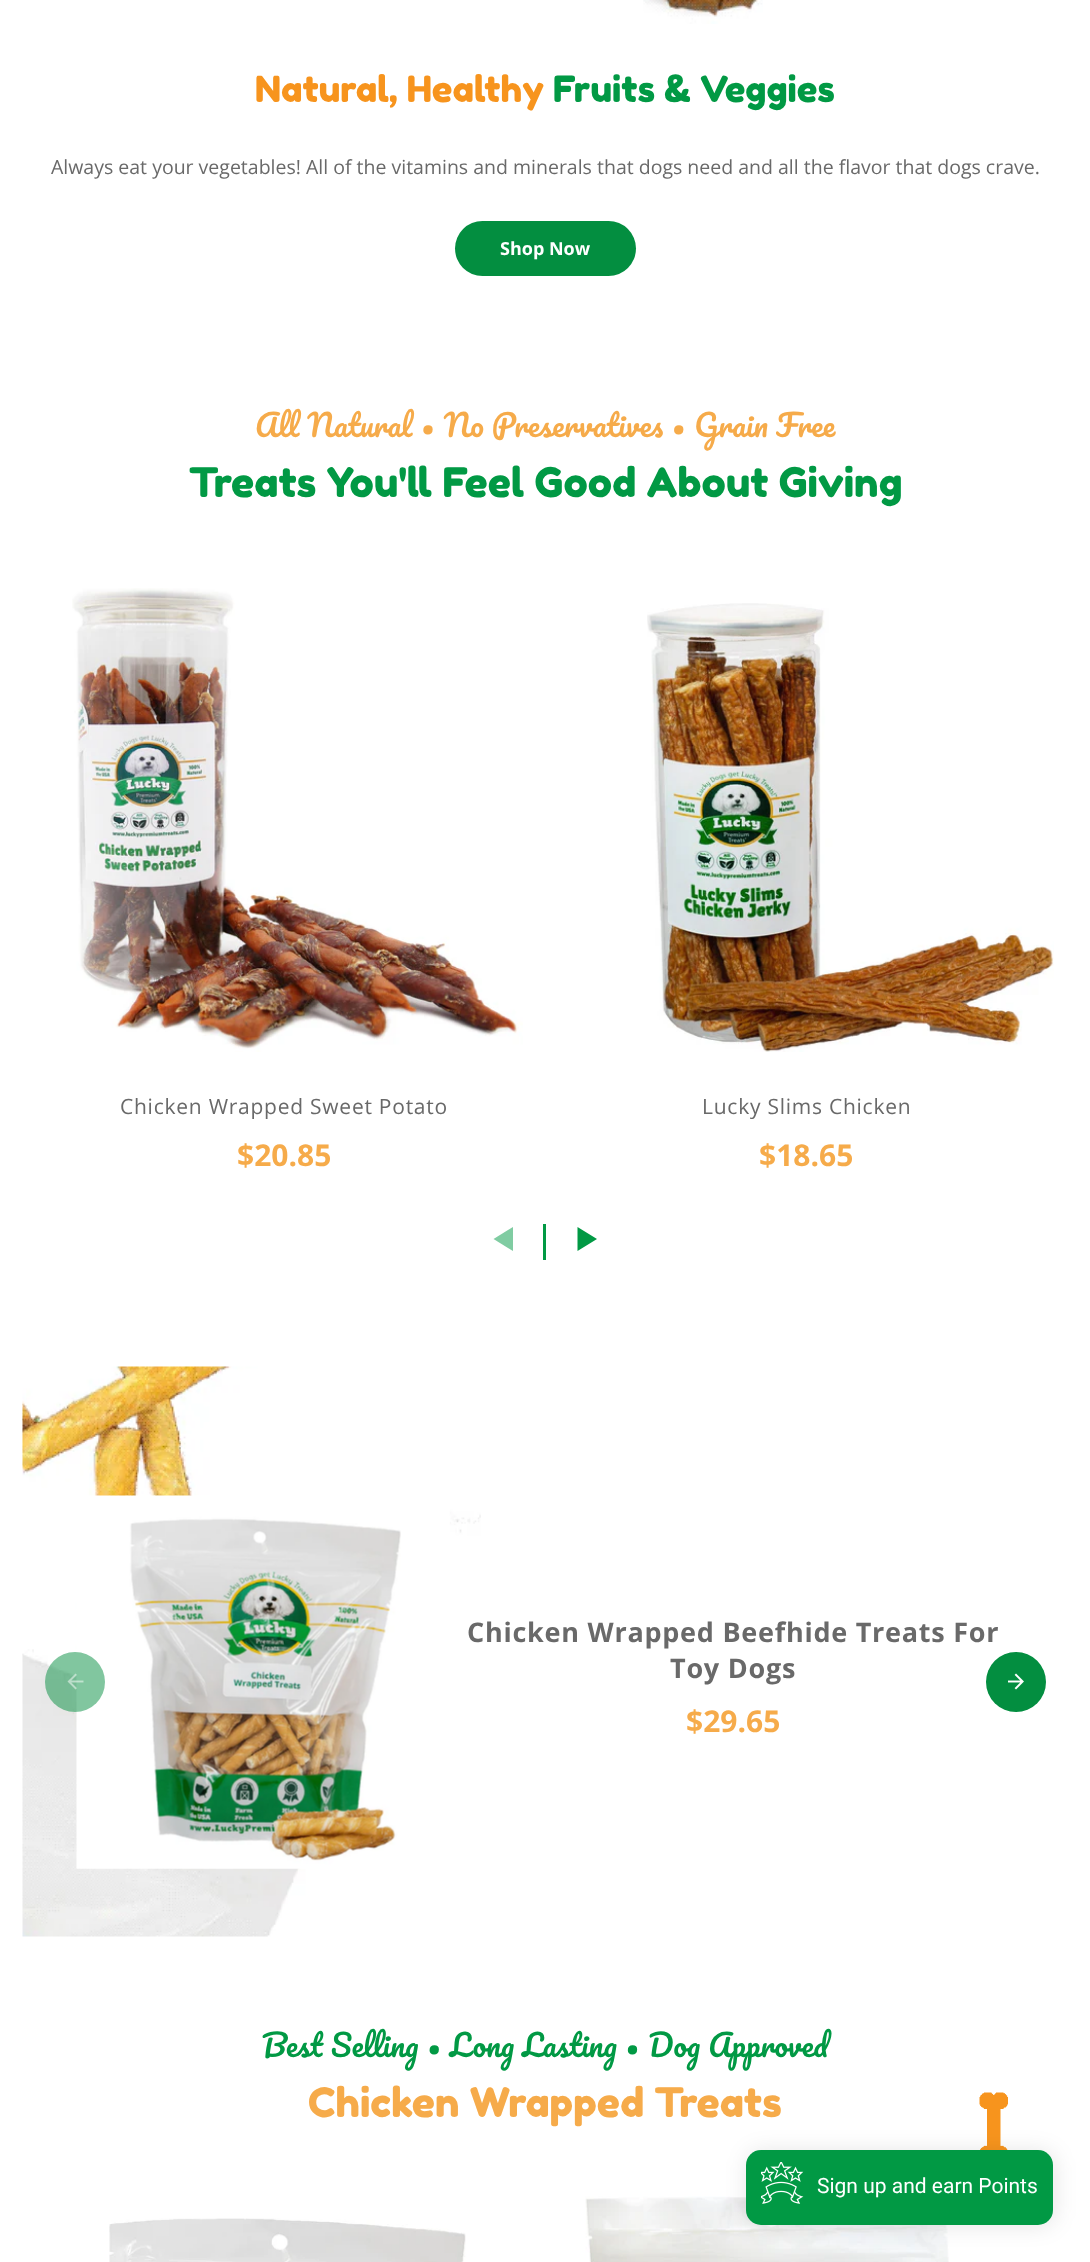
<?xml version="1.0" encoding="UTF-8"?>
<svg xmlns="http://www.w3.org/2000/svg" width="1090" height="2262">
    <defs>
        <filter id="blur1" x="-50%" y="-200%" width="200%" height="500%"><feGaussianBlur stdDeviation="11"/></filter>
    </defs>
    <rect width="100%" height="100%" fill="#FFFFFF"/>
    <image x="643" y="0" width="120" height="24" href="img_01.png"/>
    <text x="255" y="102" font-family="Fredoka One" font-size="36" fill="#F7941D">Natural, Healthy</text>
    <text x="553" y="102" font-family="Fredoka One" font-size="36" fill="#019944">Fruits &amp; Veggies</text>
    <text x="51" y="174" font-family="Open Sans" font-size="19.5" fill="#696969">Always eat your vegetables! All of the vitamins and minerals that dogs need and all the flavor that dogs crave.</text>
    <rect x="455" y="221" width="181" height="55" rx="27.5" fill="#038E40"/>
    <text x="500" y="255" font-family="Open Sans" font-size="18" font-weight="700" fill="#FFFFFF">Shop Now</text>
    <text x="255" y="437" font-family="Pacifico" font-size="30" fill="#F6AB4A">All Natural • No Preservatives • Grain Free</text>
    <text x="189" y="497" font-family="Fredoka One" font-size="40.5" fill="#019944">Treats You'll Feel Good About Giving</text>
    <image x="72" y="588" width="451" height="464" href="img_02.png"/>
    <text x="120" y="1114" font-family="Open Sans" font-size="21" letter-spacing="0.75" fill="#696969">Chicken Wrapped Sweet Potato</text>
    <text x="237" y="1166" font-family="Open Sans" font-size="30" font-weight="700" fill="#F6AB4A">$20.85</text>
    <image x="647" y="603" width="407" height="449" href="img_03.png"/>
    <text x="702" y="1114" font-family="Open Sans" font-size="21" letter-spacing="0.75" fill="#696969">Lucky Slims Chicken</text>
    <text x="759" y="1166" font-family="Open Sans" font-size="30" font-weight="700" fill="#F6AB4A">$18.65</text>
    <path d="M 513 1227 V 1251 L 493.5 1239 Z" fill="#80CCA2"/>
    <rect x="543" y="1224" width="3" height="36" fill="#019944"/>
    <path d="M 577.5 1251 V 1227 L 597 1239 Z" fill="#019944"/>
    <image x="22" y="1366" width="459" height="571" href="img_04.png"/>
    <image x="76" y="1495" width="374" height="374" href="img_05.png"/>
    <text x="467" y="1642" font-family="Open Sans" font-size="27" font-weight="700" letter-spacing="0.75" fill="#696969">Chicken Wrapped Beefhide Treats For</text>
    <text x="670" y="1678" font-family="Open Sans" font-size="27" font-weight="700" letter-spacing="0.75" fill="#696969">Toy Dogs</text>
    <text x="686" y="1732" font-family="Open Sans" font-size="30" font-weight="700" fill="#F6AB4A">$29.65</text>
    <circle cx="75" cy="1682" r="30" fill="#038E40" fill-opacity="0.5"/>
    <image x="67" y="1673" width="17" height="17" href="img_06.png"/>
    <circle cx="1016" cy="1682" r="30" fill="#038E40"/>
    <image x="1008" y="1673" width="16" height="17" href="img_07.png"/>
    <text x="262" y="2057" font-family="Pacifico" font-size="30" fill="#019944">Best Selling • Long Lasting • Dog Approved</text>
    <text x="308" y="2117" font-family="Fredoka One" font-size="40.5" fill="#F6AB4A">Chicken Wrapped Treats</text>
    <image x="109" y="2218" width="357" height="44" href="img_08.png"/>
    <image x="585" y="2196" width="364" height="66" href="img_09.png"/>
    <image x="979" y="2092" width="29" height="58" href="img_10.png"/>
    <rect x="747" y="2151" width="308" height="75" rx="15" fill="#000000" fill-opacity="0.1" filter="url(#blur1)"/>
    <rect x="746" y="2150" width="307" height="75" rx="15" fill="#019944"/>
    <image x="761" y="2162" width="43" height="42" href="img_11.png"/>
    <text x="817" y="2193" font-family="Roboto" font-size="21" fill="#FFFFFF">Sign up and earn Points</text>
</svg>
